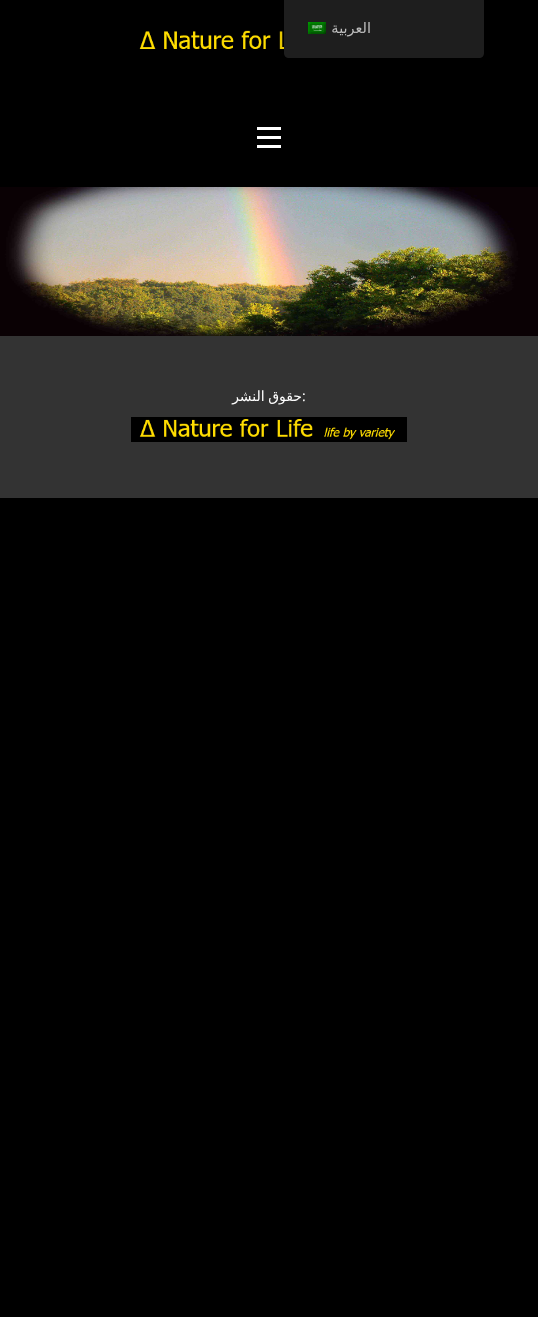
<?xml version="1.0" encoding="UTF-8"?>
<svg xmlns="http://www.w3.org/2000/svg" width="538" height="1317">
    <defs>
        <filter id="blur1" x="-50%" y="-200%" width="200%" height="500%"><feGaussianBlur stdDeviation="4"/></filter>
    </defs>
    <rect width="100%" height="100%" fill="#000000"/>
    <image x="139" y="30" width="145" height="22" href="img_02.png"/>
    <rect x="284" y="0" width="200" height="58" rx="5" fill="#000000" fill-opacity="0.25" filter="url(#blur1)"/>
    <path d="M 284 0 H 484 V 53 C 484 56 482 58 479 58 H 289 C 286 58 284 56 284 53 Z" fill="#1E1E1E"/>
    <text x="371" y="33" font-family="DejaVu Sans" font-size="14.5" direction="rtl" fill="#BDBDBD">العربية</text>
    <image x="308" y="22" width="18" height="12" href="img_01.png"/>
    <rect x="257" y="127" width="24" height="3" fill="#FFFFFF"/>
    <rect x="257" y="136" width="24" height="3" fill="#FFFFFF"/>
    <rect x="257" y="145" width="24" height="3" fill="#FFFFFF"/>
    <image x="0" y="187" width="538" height="149" href="img_03.png"/>
    <rect x="0" y="336" width="538" height="162" fill="#333333"/>
    <text x="302" y="401" font-family="Open Sans" font-size="14" fill="#FFFFFF">:</text>
    <text x="302" y="401" word-spacing="-1" font-family="DejaVu Sans" font-size="14" direction="rtl" fill="#FFFFFF">حقوق النشر</text>
    <image x="131" y="417" width="276" height="25" href="img_04.png"/>
</svg>
